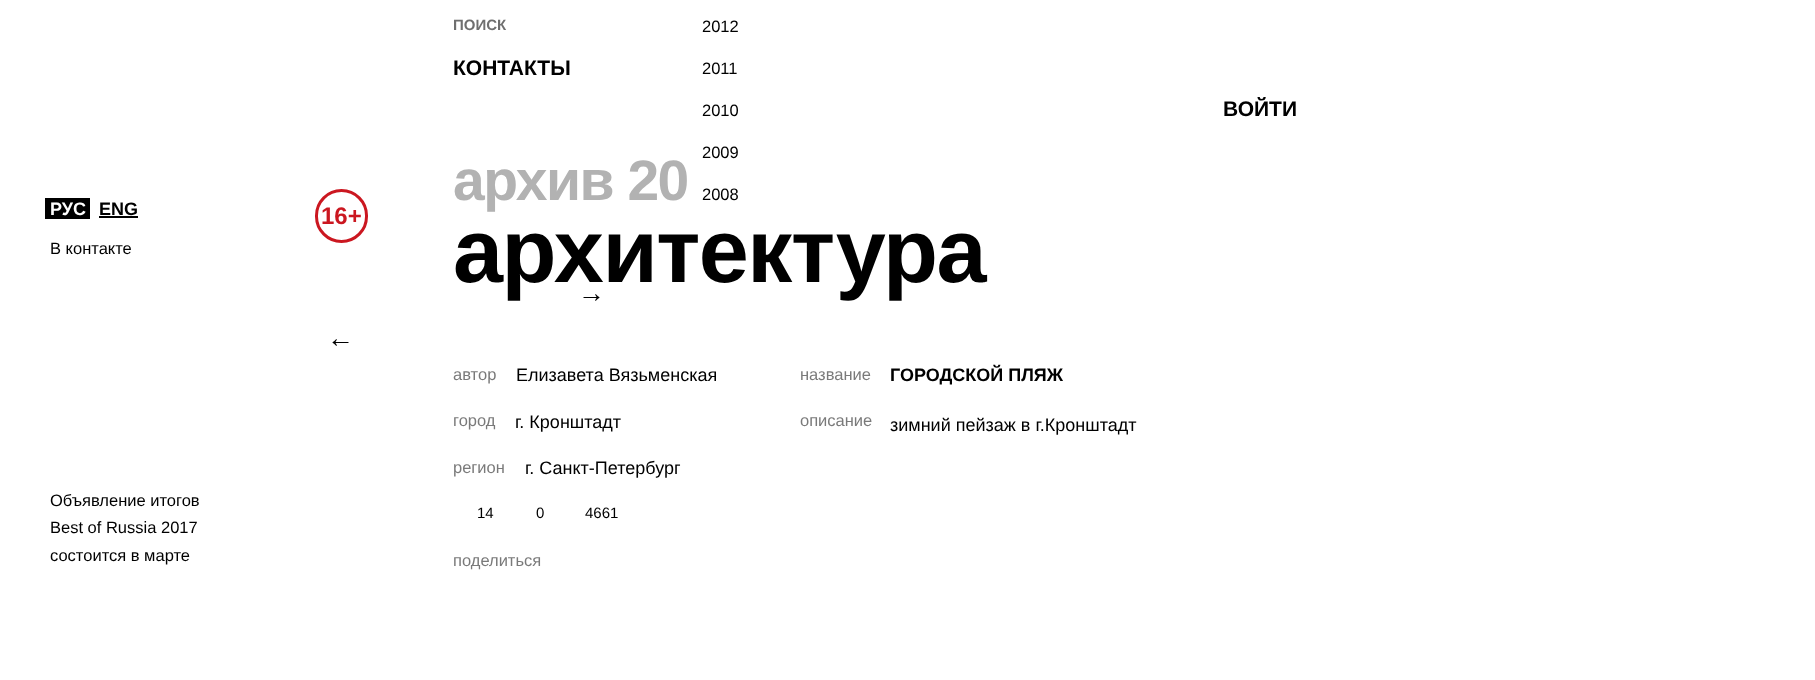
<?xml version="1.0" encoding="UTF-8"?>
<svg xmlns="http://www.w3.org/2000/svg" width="1815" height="680">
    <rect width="100%" height="100%" fill="#FFFFFF"/>
    <text x="453" y="30" font-family="Liberation Sans" font-size="15" font-weight="700" fill="#6F6F6F">ПОИСК</text>
    <text x="702" y="32" font-family="Liberation Sans" font-size="16.5" fill="#000000">2012</text>
    <text x="702" y="74" font-family="Liberation Sans" font-size="16.5" fill="#000000">2011</text>
    <text x="702" y="116" font-family="Liberation Sans" font-size="16.5" fill="#000000">2010</text>
    <text x="702" y="158" font-family="Liberation Sans" font-size="16.5" fill="#000000">2009</text>
    <text x="702" y="200" font-family="Liberation Sans" font-size="16.5" fill="#000000">2008</text>
    <text x="453" y="75" font-family="Liberation Sans" font-size="21" font-weight="700" fill="#000000">КОНТАКТЫ</text>
    <text x="1223" y="116" font-family="Liberation Sans" font-size="21" font-weight="700" fill="#000000">ВОЙТИ</text>
    <rect x="45" y="198" width="45" height="21" fill="#000000"/>
    <text x="50" y="215" font-family="Liberation Sans" font-size="18" font-weight="700" fill="#FFFFFF">РУС</text>
    <text x="99" y="215" font-family="Liberation Sans" font-size="18" font-weight="700" fill="#000000">ENG</text>
    <rect x="99" y="216" width="39" height="2" fill="#000000"/>
    <rect x="316.5" y="190.5" width="50" height="51" rx="25" fill="none" stroke="#CB1720" stroke-width="3"/>
    <text x="321" y="224" font-family="Liberation Sans" font-size="24" font-weight="700" fill="#CB1720">16+</text>
    <text x="50" y="254" font-family="Liberation Sans" font-size="16.5" fill="#000000">В контакте</text>
    <text font-family="Liberation Sans" font-size="16.5" fill="#000000">
        <tspan x="50" y="506">Объявление итогов</tspan>
        <tspan x="50" y="533">Best of Russia 2017</tspan>
        <tspan x="50" y="561">состоится в марте</tspan>
    </text>
    <text x="453" y="200" font-family="Liberation Sans" font-size="57" font-weight="700" letter-spacing="-1.5" fill="#B2B2B2">архив 20</text>
    <text x="453" y="282" font-family="Liberation Sans" font-size="90" font-weight="700" letter-spacing="-1.5" fill="#000000">архитектура</text>
    <text x="578" y="302" font-family="Liberation Sans" font-size="27" fill="#000000">→</text>
    <text x="327" y="347" font-family="Liberation Sans" font-size="27" fill="#000000">←</text>
    <text x="453" y="380" font-family="Liberation Sans" font-size="16.5" fill="#7A7A7A">автор</text>
    <text x="516" y="381" font-family="Liberation Sans" font-size="18" fill="#000000">Елизавета Вязьменская</text>
    <text x="453" y="426" font-family="Liberation Sans" font-size="16.5" fill="#7A7A7A">город</text>
    <text x="515" y="428" font-family="Liberation Sans" font-size="18" fill="#000000">г. Кронштадт</text>
    <text x="453" y="473" font-family="Liberation Sans" font-size="16.5" fill="#7A7A7A">регион</text>
    <text x="525" y="474" font-family="Liberation Sans" font-size="18" fill="#000000">г. Санкт-Петербург</text>
    <text x="477" y="518" font-family="Liberation Sans" font-size="15" fill="#000000">14</text>
    <text x="536" y="518" font-family="Liberation Sans" font-size="15" fill="#000000">0</text>
    <text x="585" y="518" font-family="Liberation Sans" font-size="15" fill="#000000">4661</text>
    <text x="453" y="566" font-family="Liberation Sans" font-size="16.5" fill="#7A7A7A">поделиться</text>
    <text x="800" y="380" font-family="Liberation Sans" font-size="16.5" fill="#7A7A7A">название</text>
    <text x="890" y="381" font-family="Liberation Sans" font-size="18" font-weight="700" fill="#000000">ГОРОДСКОЙ ПЛЯЖ</text>
    <text x="800" y="426" font-family="Liberation Sans" font-size="16.5" fill="#7A7A7A">описание</text>
    <text x="890" y="431" font-family="Liberation Sans" font-size="18" fill="#000000">зимний пейзаж в г.Кронштадт</text>
</svg>
